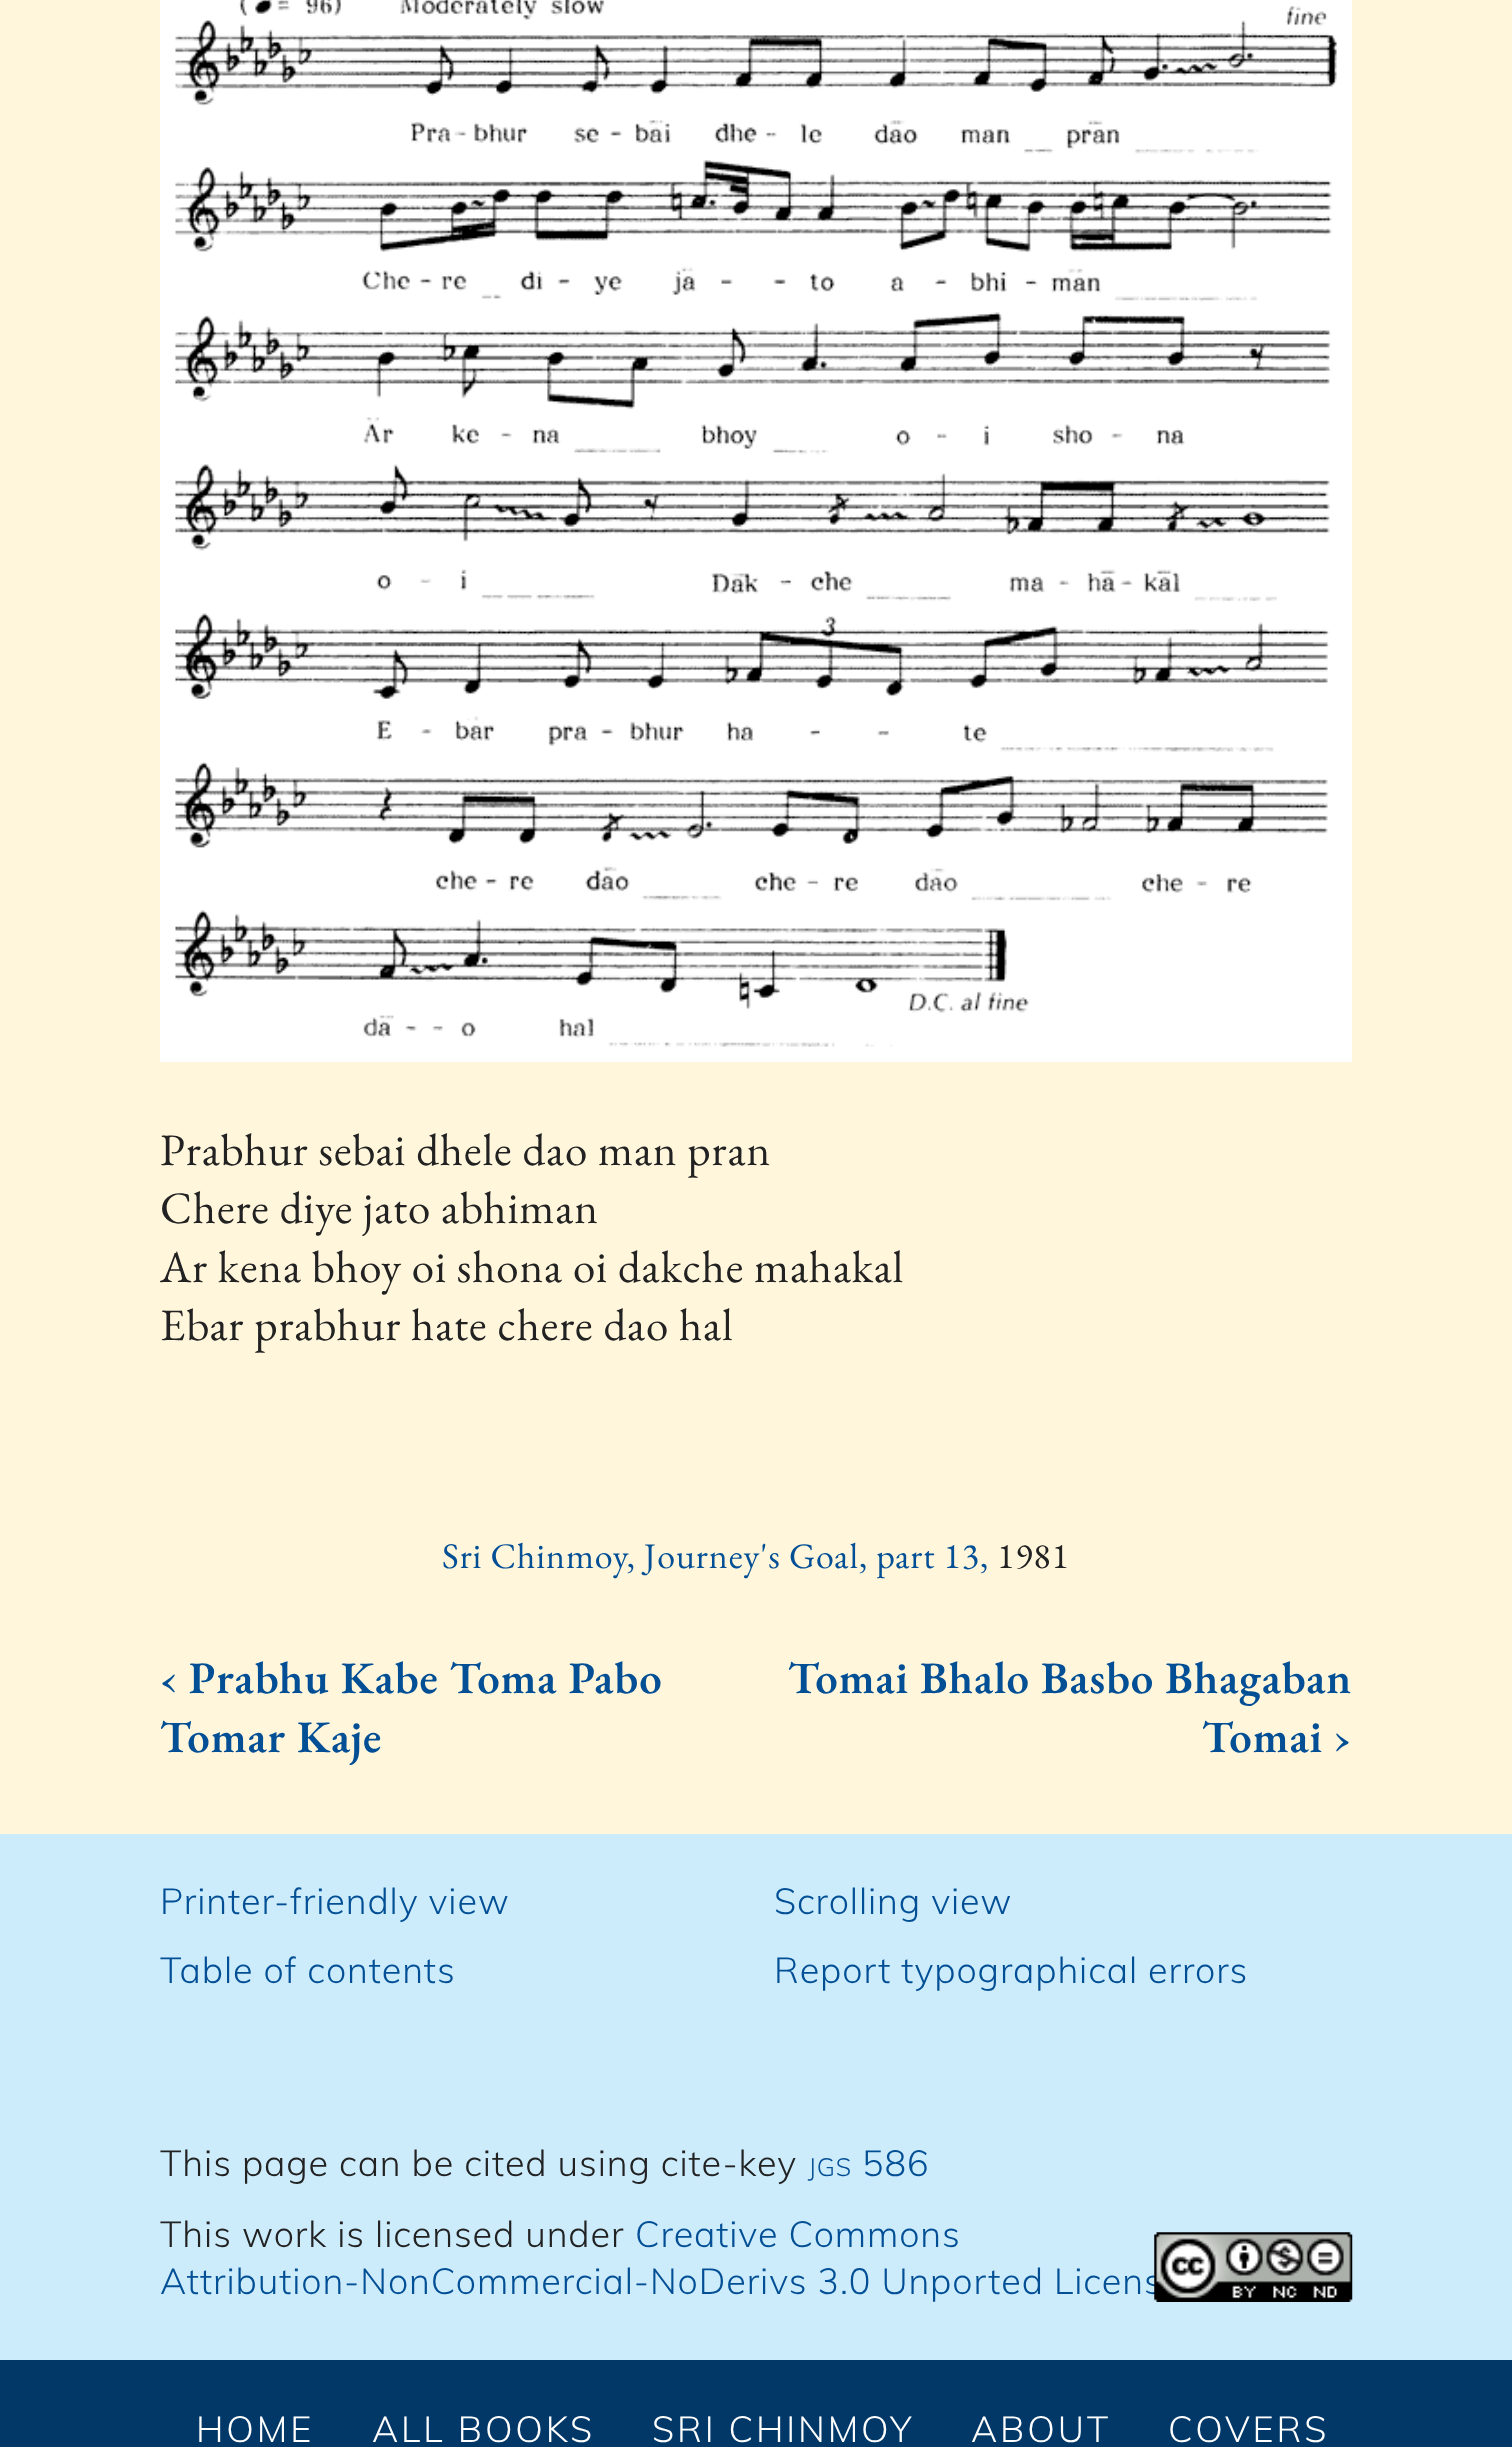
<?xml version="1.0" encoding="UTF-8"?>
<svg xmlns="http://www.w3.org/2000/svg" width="1512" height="2447">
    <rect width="100%" height="100%" fill="#FFF6DC"/>
    <rect x="168" y="-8" width="1176" height="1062" fill="none" stroke="#FFFFFF" stroke-width="16"/>
    <image x="175" y="0" width="1162" height="1047" href="img_01.png"/>
    <text font-family="EB Garamond" font-size="45" letter-spacing="0.9" fill="#222222">
        <tspan x="160" y="1165">Prabhur sebai dhele dao man pran</tspan>
        <tspan x="160" y="1223">Chere diye jato abhiman</tspan>
        <tspan x="160" y="1282">Ar kena bhoy oi shona oi dakche mahakal</tspan>
        <tspan x="160" y="1340">Ebar prabhur hate chere dao hal</tspan>
    </text>
    <text x="442" y="1568" font-family="EB Garamond" font-size="36" letter-spacing="0.9" fill="#034F95">Sri Chinmoy, Journey's Goal, part 13,</text>
    <text x="997" y="1568" font-family="EB Garamond" font-size="36" letter-spacing="0.9" fill="#222222">1981</text>
    <text font-family="EB Garamond" font-size="45" font-weight="600" letter-spacing="0.9" fill="#034F95">
        <tspan x="160" y="1693">‹ Prabhu Kabe Toma Pabo</tspan>
        <tspan x="160" y="1752">Tomar Kaje</tspan>
    </text>
    <text x="788" y="1693" font-family="EB Garamond" font-size="45" font-weight="600" letter-spacing="0.9" fill="#034F95">Tomai Bhalo Basbo Bhagaban</text>
    <text x="1202" y="1752" font-family="EB Garamond" font-size="45" font-weight="600" letter-spacing="0.9" fill="#034F95">Tomai ›</text>
    <rect x="0" y="1834" width="1512" height="526" fill="#CCECFC"/>
    <text x="160" y="1914" font-family="Muli" font-size="36" font-weight="300" letter-spacing="0.9" fill="#034F95">Printer-friendly view</text>
    <text x="774" y="1914" font-family="Muli" font-size="36" font-weight="300" letter-spacing="0.9" fill="#034F95">Scrolling view</text>
    <text x="160" y="1983" font-family="Muli" font-size="36" font-weight="300" letter-spacing="0.9" fill="#034F95">Table of contents</text>
    <text x="774" y="1983" font-family="Muli" font-size="36" font-weight="300" letter-spacing="0.9" fill="#034F95">Report typographical errors</text>
    <text x="160" y="2176" font-family="Muli" font-size="36" font-weight="300" letter-spacing="0.9" fill="#222222">This page can be cited using cite-key</text>
    <text x="808" y="2176" font-family="Muli" font-size="25" font-weight="300" letter-spacing="0.9" fill="#034F95">JGS</text>
    <text x="862" y="2176" font-family="Muli" font-size="36" font-weight="300" letter-spacing="0.9" fill="#034F95">586</text>
    <text x="160" y="2247" font-family="Muli" font-size="36" font-weight="300" letter-spacing="0.9" fill="#222222">This work is licensed under</text>
    <text x="635" y="2247" font-family="Muli" font-size="36" font-weight="300" letter-spacing="0.9" fill="#034F95">Creative Commons</text>
    <text x="160" y="2294" font-family="Muli" font-size="36" font-weight="300" letter-spacing="0.9" fill="#034F95">Attribution-NonCommercial-NoDerivs 3.0 Unported Licens</text>
    <image x="1154" y="2232" width="199" height="70" href="img_02.png"/>
    <rect x="0" y="2360" width="1512" height="87" fill="#023868"/>
    <text x="196" y="2442" font-family="Muli" font-size="36" font-weight="300" letter-spacing="2.9" fill="#FFFFFF">HOME</text>
    <text x="372" y="2442" font-family="Muli" font-size="36" font-weight="300" letter-spacing="2.9" fill="#FFFFFF">ALL BOOKS</text>
    <text x="652" y="2442" font-family="Muli" font-size="36" font-weight="300" letter-spacing="2.9" fill="#FFFFFF">SRI CHINMOY</text>
    <text x="971" y="2442" font-family="Muli" font-size="36" font-weight="300" letter-spacing="2.9" fill="#FFFFFF">ABOUT</text>
    <text x="1168" y="2442" font-family="Muli" font-size="36" font-weight="300" letter-spacing="2.9" fill="#FFFFFF">COVERS</text>
</svg>
